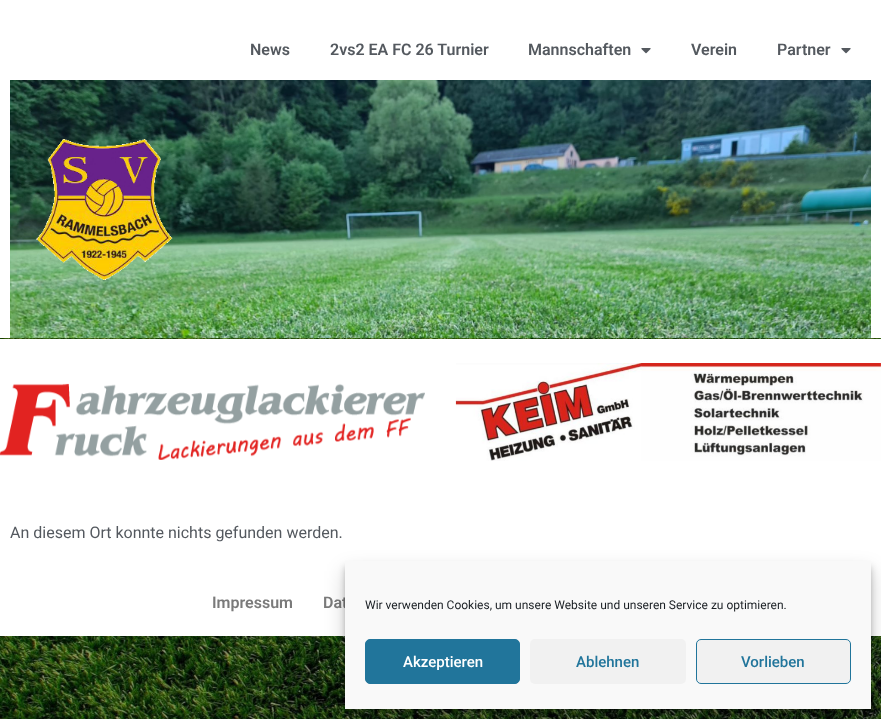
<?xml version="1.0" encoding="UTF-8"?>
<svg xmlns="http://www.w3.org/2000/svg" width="881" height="719">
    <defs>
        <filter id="blur1" x="-50%" y="-200%" width="200%" height="500%"><feGaussianBlur stdDeviation="3"/></filter>
        <filter id="blur2" x="-50%" y="-200%" width="200%" height="500%"><feGaussianBlur stdDeviation="10"/></filter>
    </defs>
    <rect width="100%" height="100%" fill="#FFFFFF"/>
    <image x="0" y="338" width="881" height="381" href="img_01.png"/>
    <text x="250" y="55" font-family="Roboto" font-size="16" font-weight="600" fill="#54595F">News</text>
    <text x="330" y="55" font-family="Roboto" font-size="16" font-weight="600" fill="#54595F">2vs2 EA FC 26 Turnier</text>
    <text x="528" y="55" font-family="Roboto" font-size="16" font-weight="600" fill="#54595F">Mannschaften</text>
    <image x="641" y="48" width="10" height="6" href="img_02.png"/>
    <text x="691" y="55" font-family="Roboto" font-size="16" font-weight="600" fill="#54595F">Verein</text>
    <text x="777" y="55" font-family="Roboto" font-size="16" font-weight="600" fill="#54595F">Partner</text>
    <image x="841" y="48" width="10" height="6" href="img_02.png"/>
    <image x="10" y="80" width="861" height="258" href="img_03.png"/>
    <rect x="0" y="339" width="881" height="297" fill="#FFFFFF"/>
    <image x="0" y="383" width="425" height="77" href="img_04.png"/>
    <image x="455" y="363" width="426" height="98" href="img_05.png"/>
    <text x="10" y="538" font-family="Roboto" font-size="16" fill="#54595F">An diesem Ort konnte nichts gefunden werden.</text>
    <text x="212" y="608" font-family="Roboto" font-size="16" font-weight="600" fill="#7A7A7A">Impressum</text>
    <text x="323" y="608" font-family="Roboto" font-size="16" font-weight="600" fill="#7A7A7A">Dat</text>
    <rect x="345" y="567" width="526" height="148" fill="#000000" fill-opacity="0.23" filter="url(#blur1)"/>
    <rect x="345" y="571" width="526" height="148" fill="#000000" fill-opacity="0.19" filter="url(#blur2)"/>
    <rect x="345" y="561" width="526" height="148" fill="#F9F9F9"/>
    <text x="365" y="609" font-family="Roboto" font-size="12" fill="#191E23">Wir verwenden Cookies, um unsere Website und unseren Service zu optimieren.</text>
    <rect x="365.5" y="639.5" width="154" height="44" rx="4.5" fill="#21759B" stroke="#21759B"/>
    <text x="403" y="667" font-family="Roboto" font-size="15" font-weight="500" fill="#FFFFFF">Akzeptieren</text>
    <rect x="530" y="639" width="156" height="45" rx="5" fill="#F1F1F1"/>
    <text x="576" y="667" font-family="Roboto" font-size="15" font-weight="500" fill="#21759B">Ablehnen</text>
    <rect x="696.5" y="639.5" width="154" height="44" rx="4.5" fill="#F1F1F1" stroke="#21759B"/>
    <text x="741" y="667" font-family="Roboto" font-size="15" font-weight="500" fill="#21759B">Vorlieben</text>
</svg>
